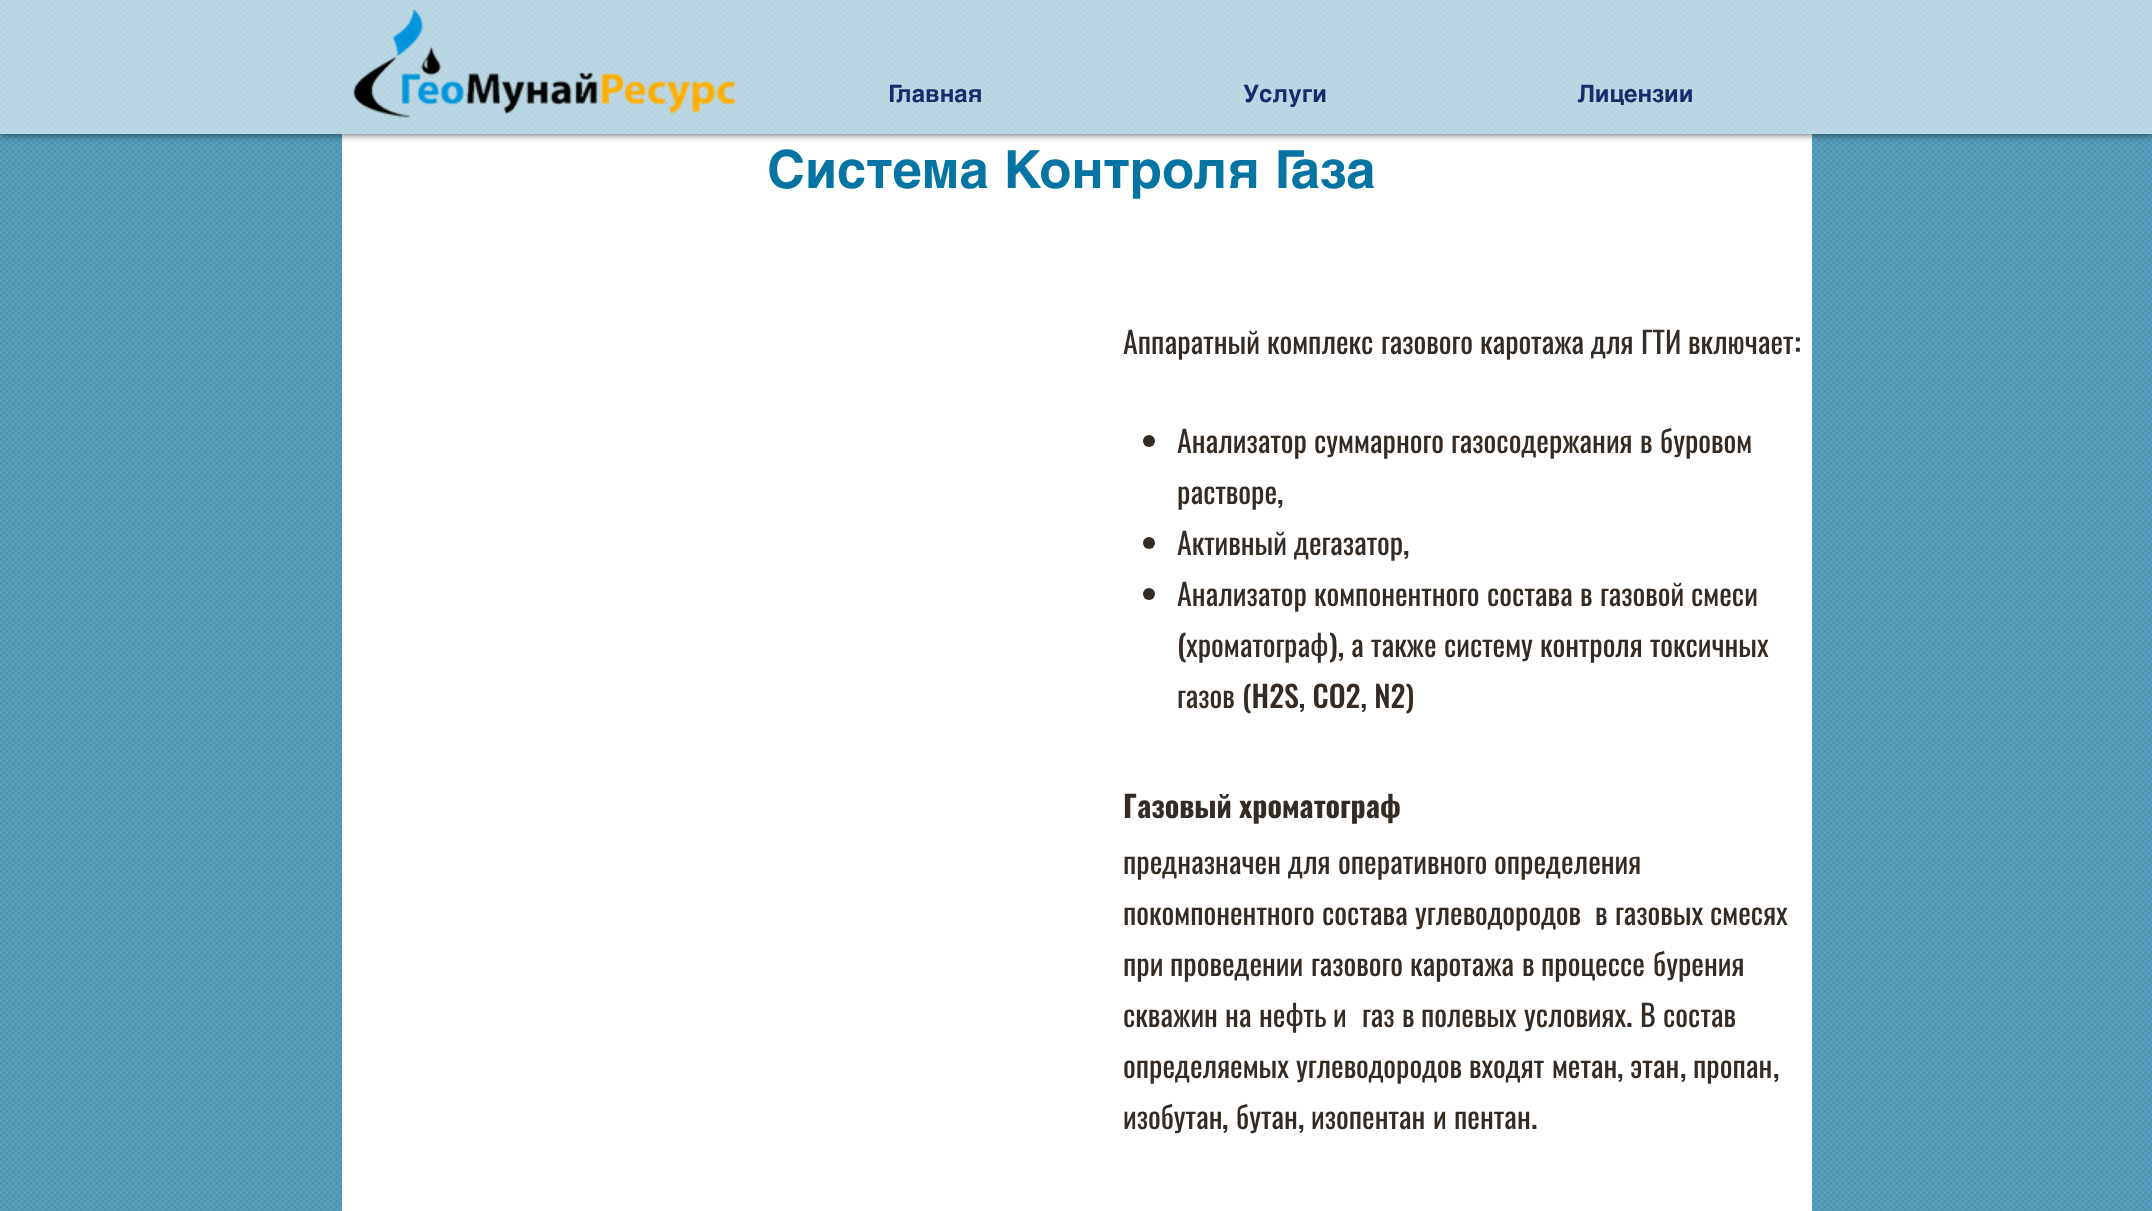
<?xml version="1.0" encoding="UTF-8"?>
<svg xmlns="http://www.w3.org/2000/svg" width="2152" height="1211">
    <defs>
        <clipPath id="clip1"><path d="M 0 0 H 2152 V 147 H 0 Z M 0 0 H 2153 V 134 H 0 Z" clip-rule="evenodd"/></clipPath>
        <filter id="blur1" x="-50%" y="-200%" width="200%" height="500%"><feGaussianBlur stdDeviation="4"/></filter>
    </defs>
    <rect width="100%" height="100%" fill="#58A2C2"/>
    <image x="0" y="0" width="2152" height="1211" href="img_01.png"/>
    <rect x="342" y="134" width="1470" height="1077" fill="#FFFFFF"/>
    <g clip-path="url(#clip1)">
        <rect x="0" y="0" width="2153" height="134" fill="#000000" fill-opacity="0.7" filter="url(#blur1)"/>
    </g>
    <rect x="0" y="0" width="2152" height="134" fill="#FFFFFF" fill-opacity="0.6"/>
    <image x="352" y="9" width="384" height="110" href="img_02.png"/>
    <text x="888" y="102" font-family="helvetica" font-size="24" font-weight="700" fill="#1A2B6D">Главная</text>
    <text x="1243" y="102" font-family="helvetica" font-size="24" font-weight="700" fill="#1A2B6D">Услуги</text>
    <text x="1577" y="102" font-family="helvetica" font-size="24" font-weight="700" fill="#1A2B6D">Лицензии</text>
    <text x="767" y="188" font-family="helvetica" font-size="52.5" font-weight="700" fill="#0574A3">Система Контроля Газа</text>
    <text x="1123" y="354" font-family="Oswald" font-size="30" fill="#342C24">Аппаратный</text>
    <text x="1267" y="354" font-family="Oswald" font-size="30" fill="#342C24">комплекс</text>
    <text x="1381" y="354" font-family="Oswald" font-size="30" fill="#342C24">газового</text>
    <text x="1480" y="354" font-family="Oswald" font-size="30" fill="#342C24">каротажа</text>
    <text x="1591" y="354" font-family="Oswald" font-size="30" fill="#342C24">для</text>
    <text x="1641" y="354" font-family="Oswald" font-size="30" fill="#342C24">ГТИ</text>
    <text x="1688" y="354" font-family="Oswald" font-size="30" fill="#342C24">включает</text>
    <text x="1794" y="354" font-family="Oswald" font-size="30" font-weight="500" fill="#342C24">:</text>
    <circle cx="1149" cy="441" r="6" fill="#342C24"/>
    <text x="1177" y="453" font-family="Oswald" font-size="30" fill="#342C24">Анализатор</text>
    <text x="1314" y="453" font-family="Oswald" font-size="30" fill="#342C24">суммарного</text>
    <text x="1451" y="453" font-family="Oswald" font-size="30" fill="#342C24">газосодержания</text>
    <text x="1640" y="453" font-family="Oswald" font-size="30" fill="#342C24">в</text>
    <text x="1660" y="453" font-family="Oswald" font-size="30" fill="#342C24">буровом</text>
    <text x="1177" y="504" font-family="Oswald" font-size="30" fill="#342C24">растворе</text>
    <text x="1277" y="504" font-family="Oswald" font-size="30" font-weight="500" fill="#342C24">,</text>
    <circle cx="1149" cy="543" r="6" fill="#342C24"/>
    <text x="1177" y="555" font-family="Oswald" font-size="30" fill="#342C24">Активный</text>
    <text x="1294" y="555" font-family="Oswald" font-size="30" fill="#342C24">дегазатор</text>
    <text x="1403" y="555" font-family="Oswald" font-size="30" font-weight="500" fill="#342C24">,</text>
    <circle cx="1149" cy="594" r="6" fill="#342C24"/>
    <text x="1177" y="606" font-family="Oswald" font-size="30" fill="#342C24">Анализатор</text>
    <text x="1314" y="606" font-family="Oswald" font-size="30" fill="#342C24">компонентного</text>
    <text x="1487" y="606" font-family="Oswald" font-size="30" fill="#342C24">состава</text>
    <text x="1580" y="606" font-family="Oswald" font-size="30" fill="#342C24">в</text>
    <text x="1600" y="606" font-family="Oswald" font-size="30" fill="#342C24">газовой</text>
    <text x="1691" y="606" font-family="Oswald" font-size="30" fill="#342C24">смеси</text>
    <text x="1177" y="657" font-family="Oswald" font-size="30" font-weight="500" fill="#342C24">(</text>
    <text x="1186" y="657" font-family="Oswald" font-size="30" fill="#342C24">хроматограф</text>
    <text x="1329" y="657" font-family="Oswald" font-size="30" font-weight="500" fill="#342C24">),</text>
    <text x="1351" y="657" font-family="Oswald" font-size="30" fill="#342C24">а</text>
    <text x="1371" y="657" font-family="Oswald" font-size="30" fill="#342C24">также</text>
    <text x="1444" y="657" font-family="Oswald" font-size="30" fill="#342C24">систему</text>
    <text x="1540" y="657" font-family="Oswald" font-size="30" fill="#342C24">контроля</text>
    <text x="1650" y="657" font-family="Oswald" font-size="30" fill="#342C24">токсичных</text>
    <text x="1177" y="708" font-family="Oswald" font-size="30" fill="#342C24">газов</text>
    <text x="1242" y="708" font-family="Oswald" font-size="30" font-weight="500" fill="#342C24">(H2S, CO2, N2)</text>
    <text x="1123" y="818" font-family="Oswald" font-size="30" font-weight="700" fill="#342C24">Газовый</text>
    <text x="1239" y="818" font-family="Oswald" font-size="30" font-weight="700" fill="#342C24">хроматограф</text>
    <text x="1123" y="874" font-family="Oswald" font-size="30" fill="#342C24">предназначен</text>
    <text x="1288" y="874" font-family="Oswald" font-size="30" fill="#342C24">для</text>
    <text x="1338" y="874" font-family="Oswald" font-size="30" fill="#342C24">оперативного</text>
    <text x="1494" y="874" font-family="Oswald" font-size="30" fill="#342C24">определения</text>
    <text x="1123" y="925" font-family="Oswald" font-size="30" fill="#342C24">покомпонентного</text>
    <text x="1322" y="925" font-family="Oswald" font-size="30" fill="#342C24">состава</text>
    <text x="1415" y="925" font-family="Oswald" font-size="30" fill="#342C24">углеводородов</text>
    <text x="1595" y="925" font-family="Oswald" font-size="30" fill="#342C24">в</text>
    <text x="1615" y="925" font-family="Oswald" font-size="30" fill="#342C24">газовых</text>
    <text x="1710" y="925" font-family="Oswald" font-size="30" fill="#342C24">смесях</text>
    <text x="1123" y="976" font-family="Oswald" font-size="30" fill="#342C24">при</text>
    <text x="1170" y="976" font-family="Oswald" font-size="30" fill="#342C24">проведении</text>
    <text x="1311" y="976" font-family="Oswald" font-size="30" fill="#342C24">газового</text>
    <text x="1410" y="976" font-family="Oswald" font-size="30" fill="#342C24">каротажа</text>
    <text x="1522" y="976" font-family="Oswald" font-size="30" fill="#342C24">в</text>
    <text x="1541" y="976" font-family="Oswald" font-size="30" fill="#342C24">процессе</text>
    <text x="1653" y="976" font-family="Oswald" font-size="30" fill="#342C24">бурения</text>
    <text x="1123" y="1027" font-family="Oswald" font-size="30" fill="#342C24">скважин</text>
    <text x="1225" y="1027" font-family="Oswald" font-size="30" fill="#342C24">на</text>
    <text x="1259" y="1027" font-family="Oswald" font-size="30" fill="#342C24">нефть</text>
    <text x="1333" y="1027" font-family="Oswald" font-size="30" fill="#342C24">и</text>
    <text x="1362" y="1027" font-family="Oswald" font-size="30" fill="#342C24">газ</text>
    <text x="1402" y="1027" font-family="Oswald" font-size="30" fill="#342C24">в</text>
    <text x="1421" y="1027" font-family="Oswald" font-size="30" fill="#342C24">полевых</text>
    <text x="1524" y="1027" font-family="Oswald" font-size="30" fill="#342C24">условиях</text>
    <text x="1626" y="1027" font-family="Oswald" font-size="30" font-weight="500" fill="#342C24">.</text>
    <text x="1640" y="1027" font-family="Oswald" font-size="30" fill="#342C24">В</text>
    <text x="1663" y="1027" font-family="Oswald" font-size="30" fill="#342C24">состав</text>
    <text x="1123" y="1078" font-family="Oswald" font-size="30" fill="#342C24">определяемых</text>
    <text x="1296" y="1078" font-family="Oswald" font-size="30" fill="#342C24">углеводородов</text>
    <text x="1469" y="1078" font-family="Oswald" font-size="30" fill="#342C24">входят</text>
    <text x="1552" y="1078" font-family="Oswald" font-size="30" fill="#342C24">метан</text>
    <text x="1617" y="1078" font-family="Oswald" font-size="30" font-weight="500" fill="#342C24">,</text>
    <text x="1630" y="1078" font-family="Oswald" font-size="30" fill="#342C24">этан</text>
    <text x="1680" y="1078" font-family="Oswald" font-size="30" font-weight="500" fill="#342C24">,</text>
    <text x="1693" y="1078" font-family="Oswald" font-size="30" fill="#342C24">пропан</text>
    <text x="1773" y="1078" font-family="Oswald" font-size="30" font-weight="500" fill="#342C24">,</text>
    <text x="1123" y="1129" font-family="Oswald" font-size="30" fill="#342C24">изобутан</text>
    <text x="1222" y="1129" font-family="Oswald" font-size="30" font-weight="500" fill="#342C24">,</text>
    <text x="1236" y="1129" font-family="Oswald" font-size="30" fill="#342C24">бутан</text>
    <text x="1298" y="1129" font-family="Oswald" font-size="30" font-weight="500" fill="#342C24">,</text>
    <text x="1311" y="1129" font-family="Oswald" font-size="30" fill="#342C24">изопентан</text>
    <text x="1433" y="1129" font-family="Oswald" font-size="30" fill="#342C24">и</text>
    <text x="1454" y="1129" font-family="Oswald" font-size="30" fill="#342C24">пентан</text>
    <text x="1531" y="1129" font-family="Oswald" font-size="30" font-weight="500" fill="#342C24">.</text>
</svg>
